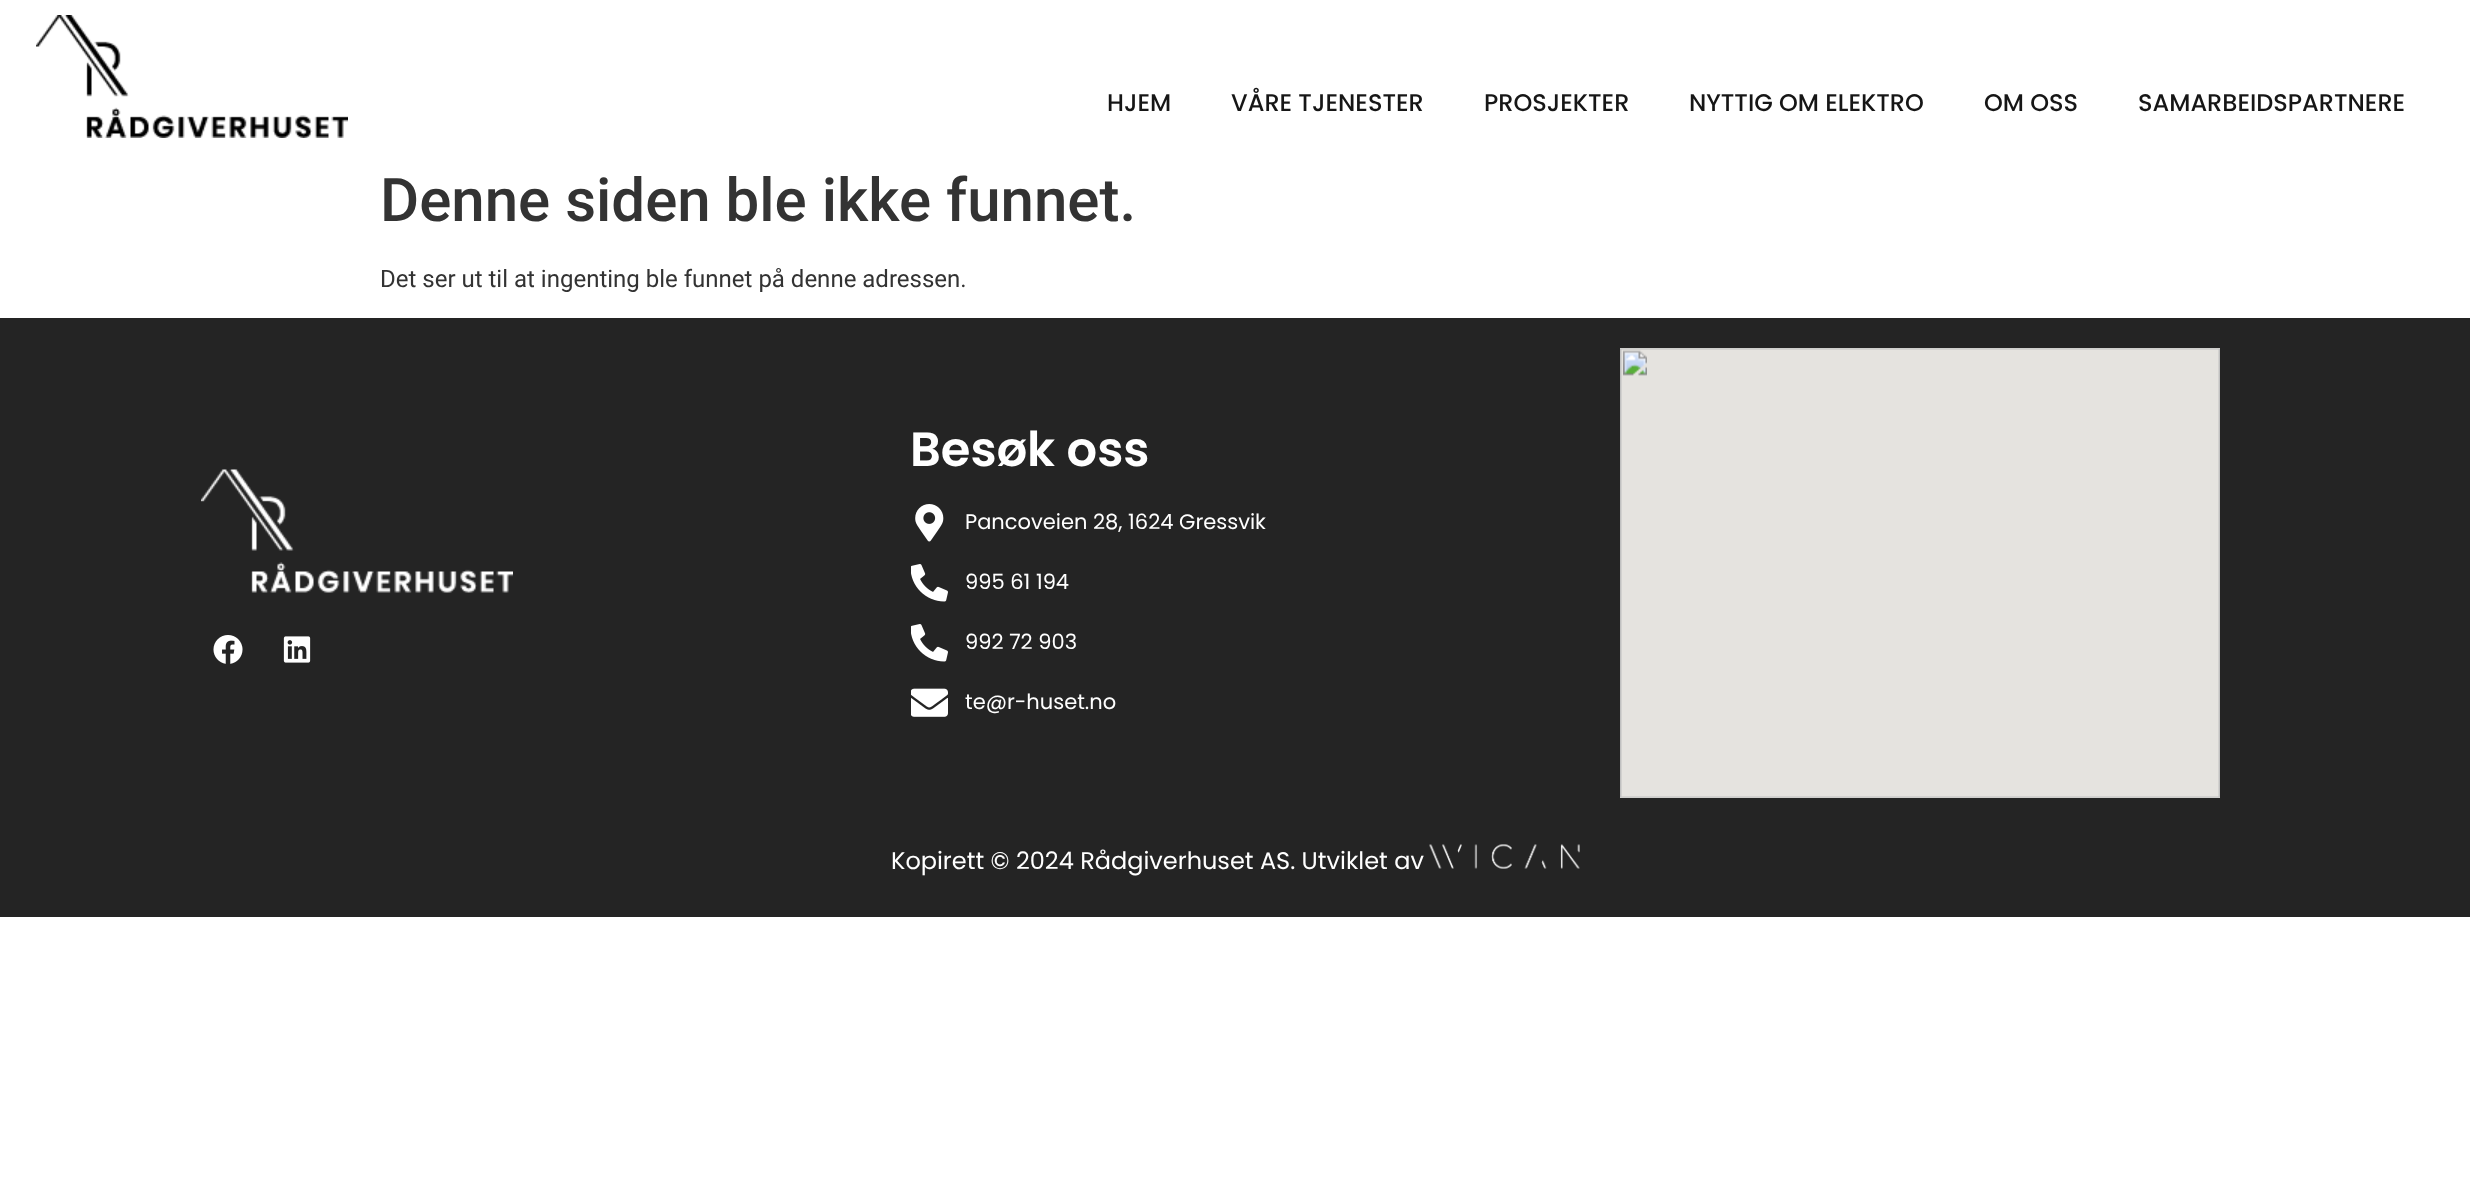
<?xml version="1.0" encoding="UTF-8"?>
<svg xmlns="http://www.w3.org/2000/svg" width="2470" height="1193">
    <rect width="100%" height="100%" fill="#FFFFFF"/>
    <image x="36" y="15" width="312" height="123" href="img_01.png"/>
    <text x="1107" y="111" font-family="Poppins" font-size="24" font-weight="500" fill="#161616">HJEM</text>
    <text x="1231" y="111" font-family="Poppins" font-size="24" font-weight="500" fill="#161616">VÅRE TJENESTER</text>
    <text x="1484" y="111" font-family="Poppins" font-size="24" font-weight="500" fill="#161616">PROSJEKTER</text>
    <text x="1689" y="111" font-family="Poppins" font-size="24" font-weight="500" fill="#161616">NYTTIG OM ELEKTRO</text>
    <text x="1984" y="111" font-family="Poppins" font-size="24" font-weight="500" fill="#161616">OM OSS</text>
    <text x="2138" y="111" font-family="Poppins" font-size="24" font-weight="500" fill="#161616">SAMARBEIDSPARTNERE</text>
    <text x="380" y="221" font-family="Roboto" font-size="60" font-weight="500" fill="#333333">Denne siden ble ikke funnet.</text>
    <text x="380" y="287" font-family="Roboto" font-size="24" fill="#333333">Det ser ut til at ingenting ble funnet på denne adressen.</text>
    <rect x="0" y="318" width="2470" height="599" fill="#242424"/>
    <image x="201" y="469" width="312" height="124" href="img_02.png"/>
    <image x="213" y="635" width="30" height="29" href="img_03.png"/>
    <image x="283" y="636" width="28" height="27" href="img_04.png"/>
    <text x="910" y="466" font-family="Poppins" font-size="48" font-weight="600" fill="#FFFFFF">Besøk oss</text>
    <image x="915" y="504" width="29" height="38" href="img_05.png"/>
    <text x="965" y="529" font-family="Poppins" font-size="21" fill="#FFFFFF">Pancoveien 28, 1624 Gressvik</text>
    <image x="911" y="564" width="37" height="38" href="img_06.png"/>
    <text x="965" y="589" font-family="Poppins" font-size="21" fill="#FFFFFF">995 61 194</text>
    <image x="911" y="624" width="37" height="38" href="img_06.png"/>
    <text x="965" y="649" font-family="Poppins" font-size="21" fill="#FFFFFF">992 72 903</text>
    <image x="911" y="688" width="37" height="29" href="img_07.png"/>
    <text x="965" y="709" font-family="Poppins" font-size="21" fill="#FFFFFF">te@r-huset.no</text>
    <image x="1620" y="348" width="600" height="450" href="img_08.png"/>
    <text x="891" y="869" font-family="Poppins" font-size="24" fill="#FFFFFF">Kopirett © 2024 Rådgiverhuset AS. Utviklet av</text>
    <image x="1429" y="844" width="151" height="25" href="img_09.png"/>
</svg>
